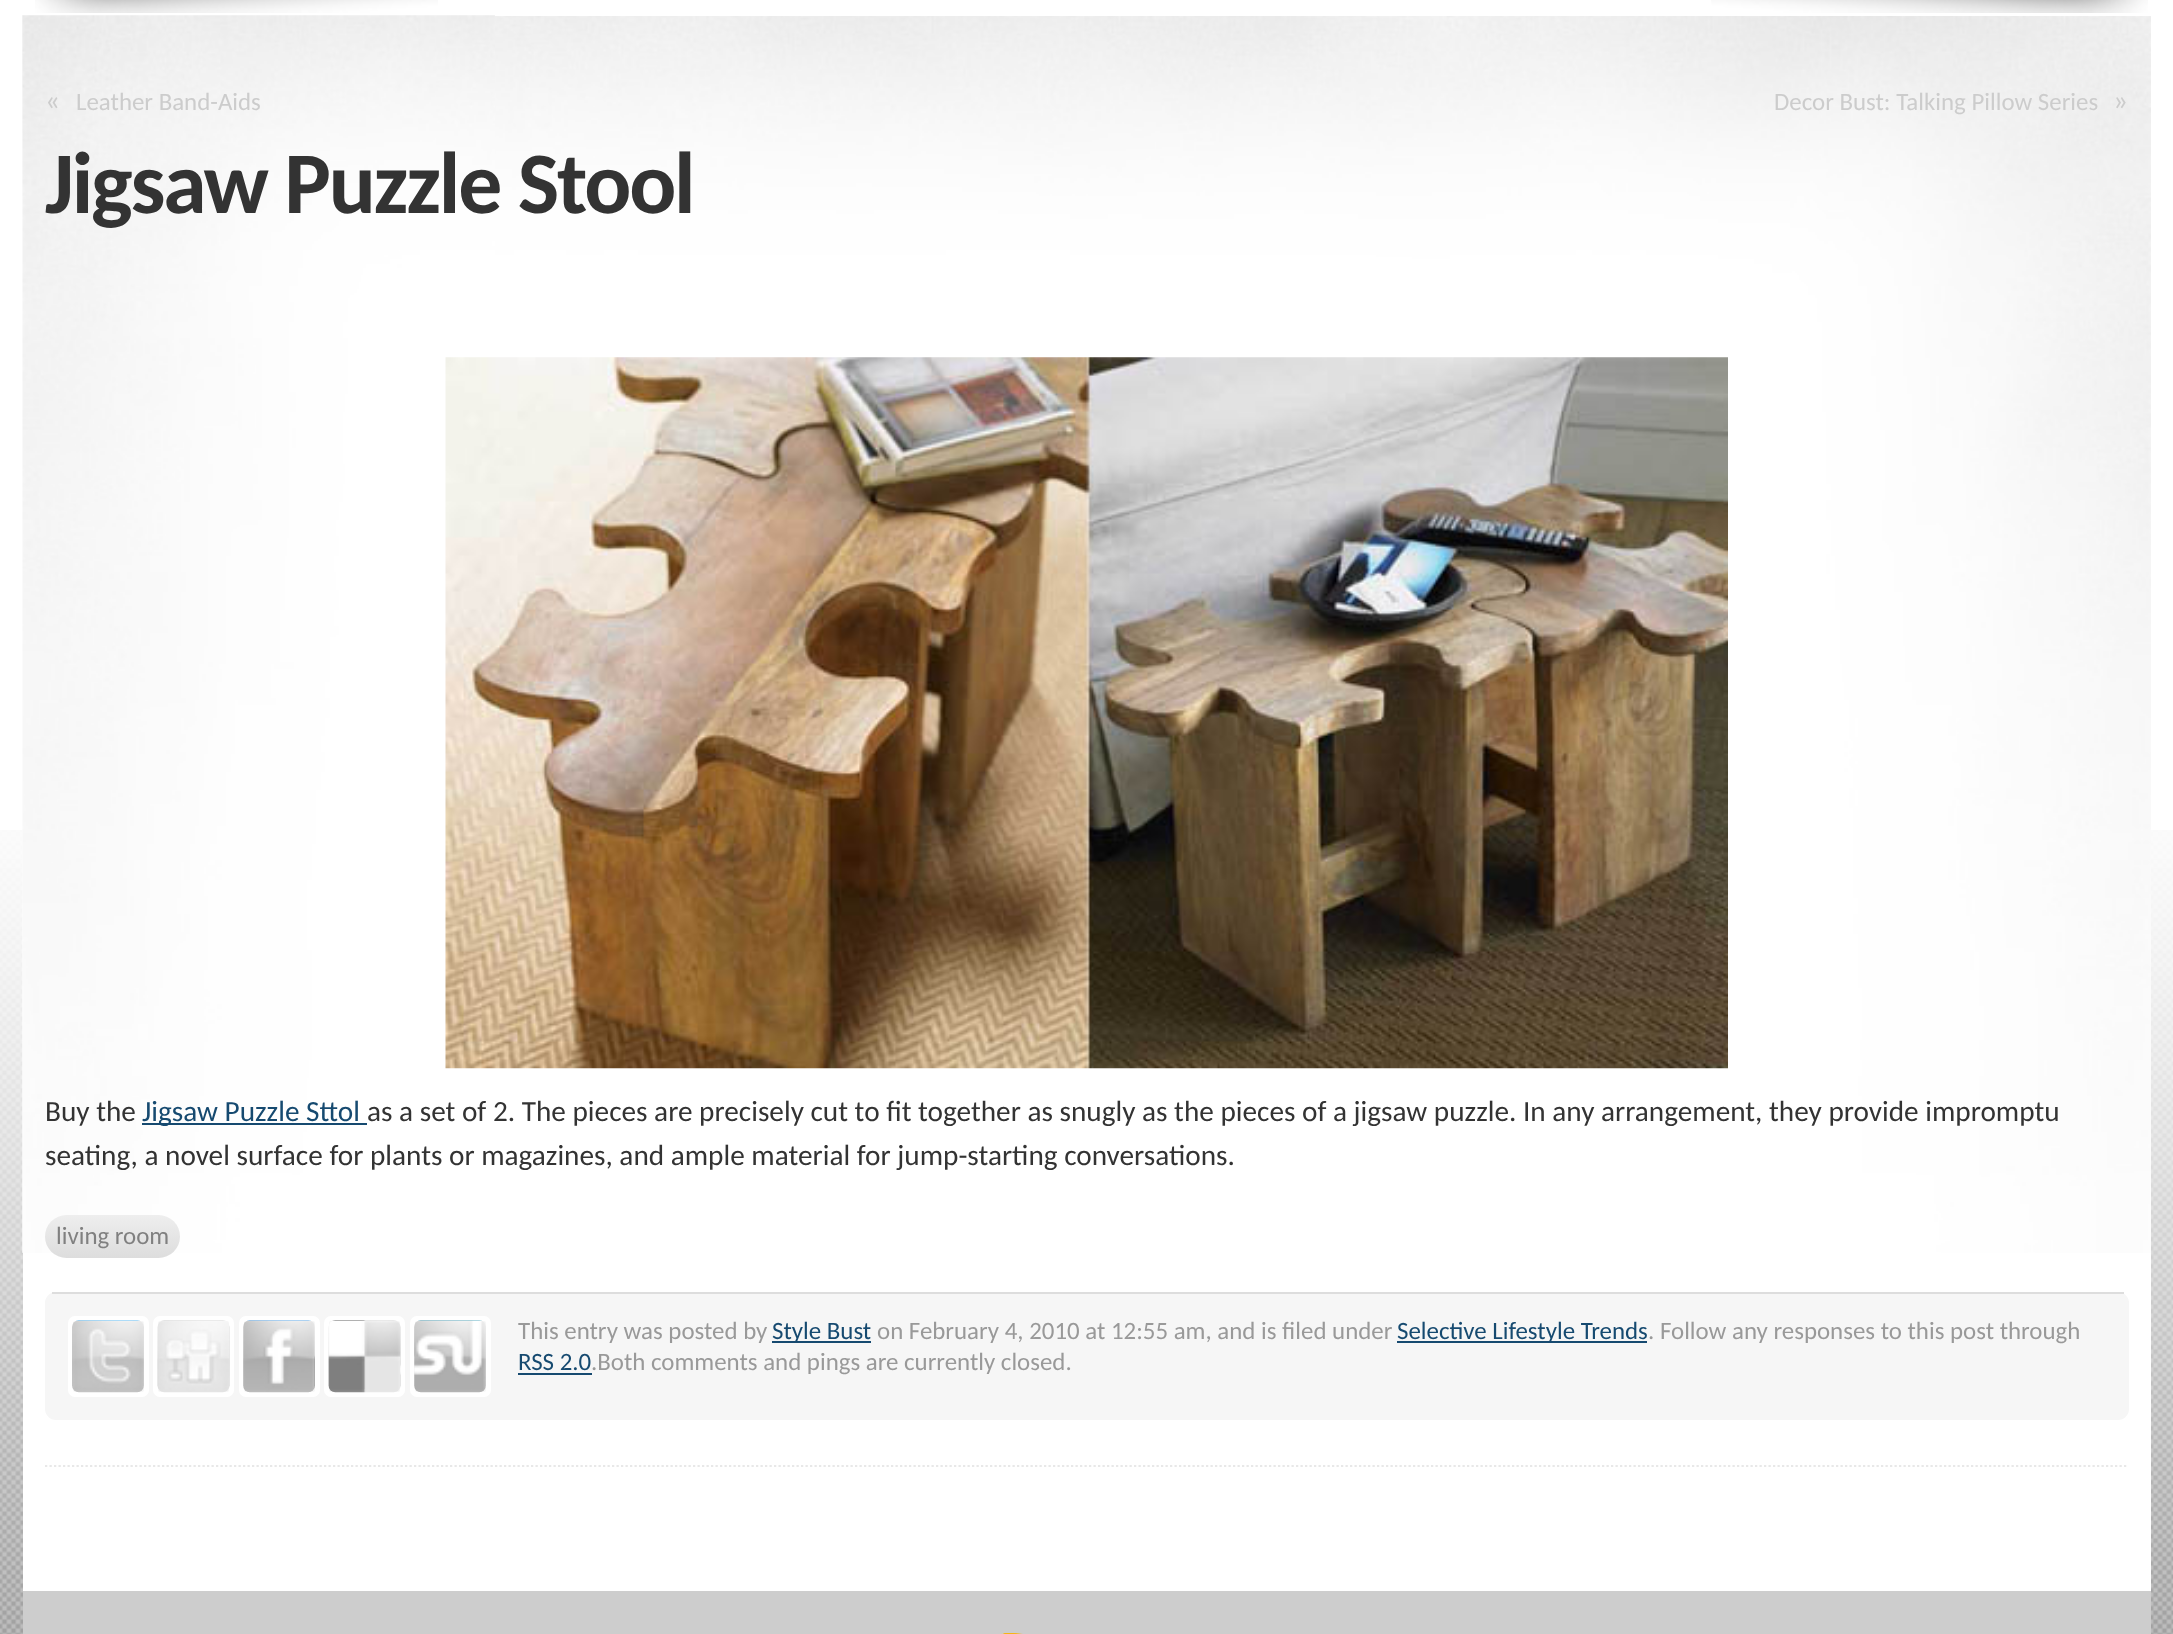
<?xml version="1.0" encoding="UTF-8"?>
<svg xmlns="http://www.w3.org/2000/svg" width="2173" height="1634">
    <defs>
        <linearGradient id="g1" gradientUnits="userSpaceOnUse" x1="113" y1="1215" x2="113" y2="1258"><stop offset="0" stop-color="#EEEEEE"/><stop offset="1" stop-color="#DDDDDD"/></linearGradient>
    </defs>
    <rect width="100%" height="100%" fill="#FFFFFF"/>
    <image x="0" y="830" width="2173" height="804" href="img_01.png"/>
    <image x="35" y="0" width="403" height="13" href="img_02.png"/>
    <image x="1711" y="0" width="437" height="13" href="img_03.png"/>
    <rect x="23" y="1252" width="2128" height="339" fill="#FFFFFF"/>
    <image x="22" y="15" width="2129" height="1238" href="img_04.png"/>
    <rect x="23" y="15" width="2128" height="1" fill="#FFFFFF"/>
    <image x="22" y="15" width="473" height="1238" href="img_05.png"/>
    <text x="45" y="110" font-family="Carlito" font-size="29.25" fill="#CCCCCC">«</text>
    <text x="76" y="110" font-family="Carlito" font-size="24.9" fill="#CCCCCC">Leather Band-Aids</text>
    <text x="1774" y="110" font-family="Carlito" font-size="24.9" fill="#CCCCCC">Decor Bust: Talking Pillow Series</text>
    <text x="2113" y="110" font-family="Carlito" font-size="29.25" fill="#CCCCCC">»</text>
    <path d="M 45 1466 H 2128.5" fill="none" stroke="#E8E8E8" stroke-width="2.2" stroke-dasharray="2.25 2.25"/>
    <text x="45" y="213" font-family="Carlito" font-size="87.75" font-weight="700" letter-spacing="-2.25" fill="#333333">Jigsaw Puzzle Stool</text>
    <image x="445" y="357" width="1283" height="712" href="img_06.png"/>
    <text x="45" y="1121" font-family="Carlito" font-size="29.25" fill="#333333">Buy the</text>
    <rect x="142" y="1123" width="225" height="2" fill="#164A70"/>
    <text x="142" y="1121" font-family="Carlito" font-size="29.25" fill="#164A70">Jigsaw Puzzle Sttol</text>
    <text x="367" y="1121" font-family="Carlito" font-size="29.25" fill="#333333">as a set of 2. The pieces are precisely cut to fit together as snugly as the pieces of a jigsaw puzzle. In any arrangement, they provide impromptu</text>
    <text x="45" y="1165" font-family="Carlito" font-size="29.25" fill="#333333">seating, a novel surface for plants or magazines, and ample material for jump-starting conversations.</text>
    <rect x="45" y="1215" width="135" height="43" rx="21.5" fill="url(#g1)"/>
    <text x="56" y="1244" font-family="Carlito" font-size="24.9" fill="#808080">living room</text>
    <rect x="45" y="1292" width="2084" height="128" rx="11" fill="#F6F6F6"/>
    <rect x="52" y="1292" width="2072" height="2" fill="#DDDDDD"/>
    <rect x="70.5" y="1318.5" width="76" height="76" rx="4.5" fill="none" stroke="#FFFFFF" stroke-width="5"/>
    <image x="72" y="1320" width="72" height="73" href="img_07.png"/>
    <rect x="155.5" y="1318.5" width="76" height="76" rx="4.5" fill="none" stroke="#FFFFFF" stroke-width="5"/>
    <image x="157" y="1320" width="73" height="73" href="img_08.png"/>
    <rect x="241.5" y="1318.5" width="76" height="76" rx="4.5" fill="none" stroke="#FFFFFF" stroke-width="5"/>
    <image x="243" y="1320" width="72" height="73" href="img_09.png"/>
    <rect x="326.5" y="1318.5" width="76" height="76" rx="4.5" fill="none" stroke="#FFFFFF" stroke-width="5"/>
    <image x="328" y="1320" width="73" height="73" href="img_10.png"/>
    <rect x="412.5" y="1318.5" width="76" height="76" rx="4.5" fill="none" stroke="#FFFFFF" stroke-width="5"/>
    <image x="414" y="1320" width="72" height="73" href="img_11.png"/>
    <text x="518" y="1339" font-family="Carlito" font-size="24.9" fill="#999999">This entry was posted by</text>
    <rect x="772" y="1341" width="99" height="2" fill="#164A70"/>
    <text x="772" y="1339" font-family="Carlito" font-size="24.9" fill="#164A70">Style Bust</text>
    <text x="877" y="1339" font-family="Carlito" font-size="24.9" fill="#999999">on February 4, 2010 at 12:55 am, and is filed under</text>
    <rect x="1397" y="1341" width="250" height="2" fill="#164A70"/>
    <text x="1397" y="1339" font-family="Carlito" font-size="24.9" fill="#164A70">Selective Lifestyle Trends</text>
    <text x="1648" y="1339" font-family="Carlito" font-size="24.9" fill="#999999">. Follow any responses to this post through</text>
    <text x="518" y="1370" font-family="Carlito" font-size="24.9" fill="#164A70">RSS 2.0</text>
    <rect x="518" y="1373" width="74" height="2" fill="#164A70"/>
    <text x="591" y="1370" font-family="Carlito" font-size="24.9" fill="#999999">.Both comments and pings are currently closed.</text>
    <rect x="23" y="1591" width="2128" height="43" fill="#CDCDCD"/>
    <image x="1001" y="1633" width="22" height="1" href="img_12.png"/>
</svg>
